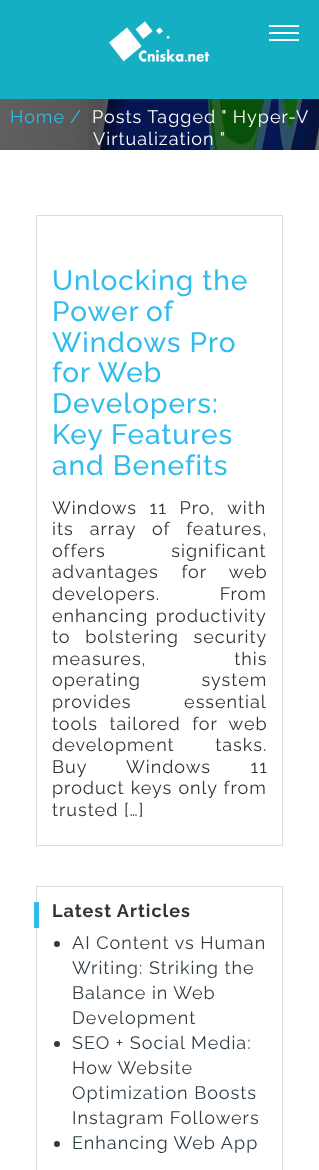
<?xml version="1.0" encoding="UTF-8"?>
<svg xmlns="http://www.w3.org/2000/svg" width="319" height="1170">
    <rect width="100%" height="100%" fill="#FFFFFF"/>
    <rect x="314" y="121" width="5" height="29" fill="#6E6E6E"/>
    <rect x="0" y="0" width="319" height="99" fill="#15AFC3"/>
    <image x="109" y="21" width="101" height="41" href="img_01.png"/>
    <rect x="269" y="25" width="30" height="2" fill="#FFFFFF"/>
    <rect x="269" y="32" width="30" height="2" fill="#FFFFFF"/>
    <rect x="269" y="39" width="30" height="2" fill="#FFFFFF"/>
    <image x="0" y="99" width="319" height="51" href="img_02.png"/>
    <text x="10" y="123" font-family="Raleway" font-size="18" letter-spacing="1" fill="#30BCED">Home</text>
    <text x="70" y="123" font-family="Raleway" font-size="18" letter-spacing="1" fill="#30BCED">/</text>
    <text x="92" y="123" font-family="Raleway" font-size="18" letter-spacing="1" fill="#FFFFFF">Posts Tagged " Hyper-V</text>
    <text x="93" y="145" font-family="Raleway" font-size="18" letter-spacing="1" fill="#FFFFFF">Virtualization "</text>
    <rect x="36.5" y="215.5" width="246" height="630" fill="none" stroke="#DDDDDD"/>
    <text font-family="Raleway" font-size="28" font-weight="500" letter-spacing="1" fill="#30BCED">
        <tspan x="52" y="290">Unlocking the</tspan>
        <tspan x="52" y="321" word-spacing="-1">Power of</tspan>
        <tspan x="52" y="352">Windows Pro</tspan>
        <tspan x="52" y="382">for Web</tspan>
        <tspan x="52" y="413">Developers:</tspan>
        <tspan x="52" y="444">Key Features</tspan>
        <tspan x="52" y="475">and Benefits</tspan>
    </text>
    <text font-family="Raleway" font-size="18" letter-spacing="1" fill="#333333">
        <tspan x="52" y="514" word-spacing="7">Windows 11 Pro, with</tspan>
        <tspan x="52" y="535" word-spacing="10.5">its array of features,</tspan>
        <tspan x="52" y="557" word-spacing="60">offers significant</tspan>
        <tspan x="52" y="578" word-spacing="17">advantages for web</tspan>
        <tspan x="52" y="600" word-spacing="54">developers. From</tspan>
        <tspan x="52" y="622" word-spacing="2">enhancing productivity</tspan>
        <tspan x="52" y="643" word-spacing="9">to bolstering security</tspan>
        <tspan x="52" y="665" word-spacing="82">measures, this</tspan>
        <tspan x="52" y="686" word-spacing="55">operating system</tspan>
        <tspan x="52" y="708" word-spacing="47">provides essential</tspan>
        <tspan x="52" y="730" word-spacing="6">tools tailored for web</tspan>
        <tspan x="52" y="751" word-spacing="35">development tasks.</tspan>
        <tspan x="52" y="773" word-spacing="34">Buy Windows 11</tspan>
        <tspan x="52" y="794" word-spacing="0.5">product keys only from</tspan>
        <tspan x="52" y="816">trusted […]</tspan>
    </text>
    <rect x="36.5" y="886.5" width="246" height="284" fill="none" stroke="#DDDDDD"/>
    <rect x="34" y="902" width="5" height="26" fill="#30BCED"/>
    <text x="52" y="917" font-family="Raleway" font-size="18" font-weight="700" letter-spacing="1" fill="#333333">Latest Articles</text>
    <circle cx="57" cy="944" r="3" fill="#2F3C44"/>
    <text font-family="Raleway" font-size="18" letter-spacing="1" fill="#2F3C44">
        <tspan x="72" y="949">AI Content vs Human</tspan>
        <tspan x="72" y="974">Writing: Striking the</tspan>
        <tspan x="72" y="999">Balance in Web</tspan>
        <tspan x="72" y="1024">Development</tspan>
    </text>
    <circle cx="57" cy="1044" r="3" fill="#2F3C44"/>
    <text font-family="Raleway" font-size="18" letter-spacing="1" fill="#2F3C44">
        <tspan x="72" y="1049">SEO + Social Media:</tspan>
        <tspan x="72" y="1074">How Website</tspan>
        <tspan x="72" y="1099">Optimization Boosts</tspan>
        <tspan x="72" y="1124">Instagram Followers</tspan>
    </text>
    <circle cx="57" cy="1144" r="3" fill="#2F3C44"/>
    <text x="72" y="1149" font-family="Raleway" font-size="18" letter-spacing="1" fill="#2F3C44">Enhancing Web App</text>
</svg>
